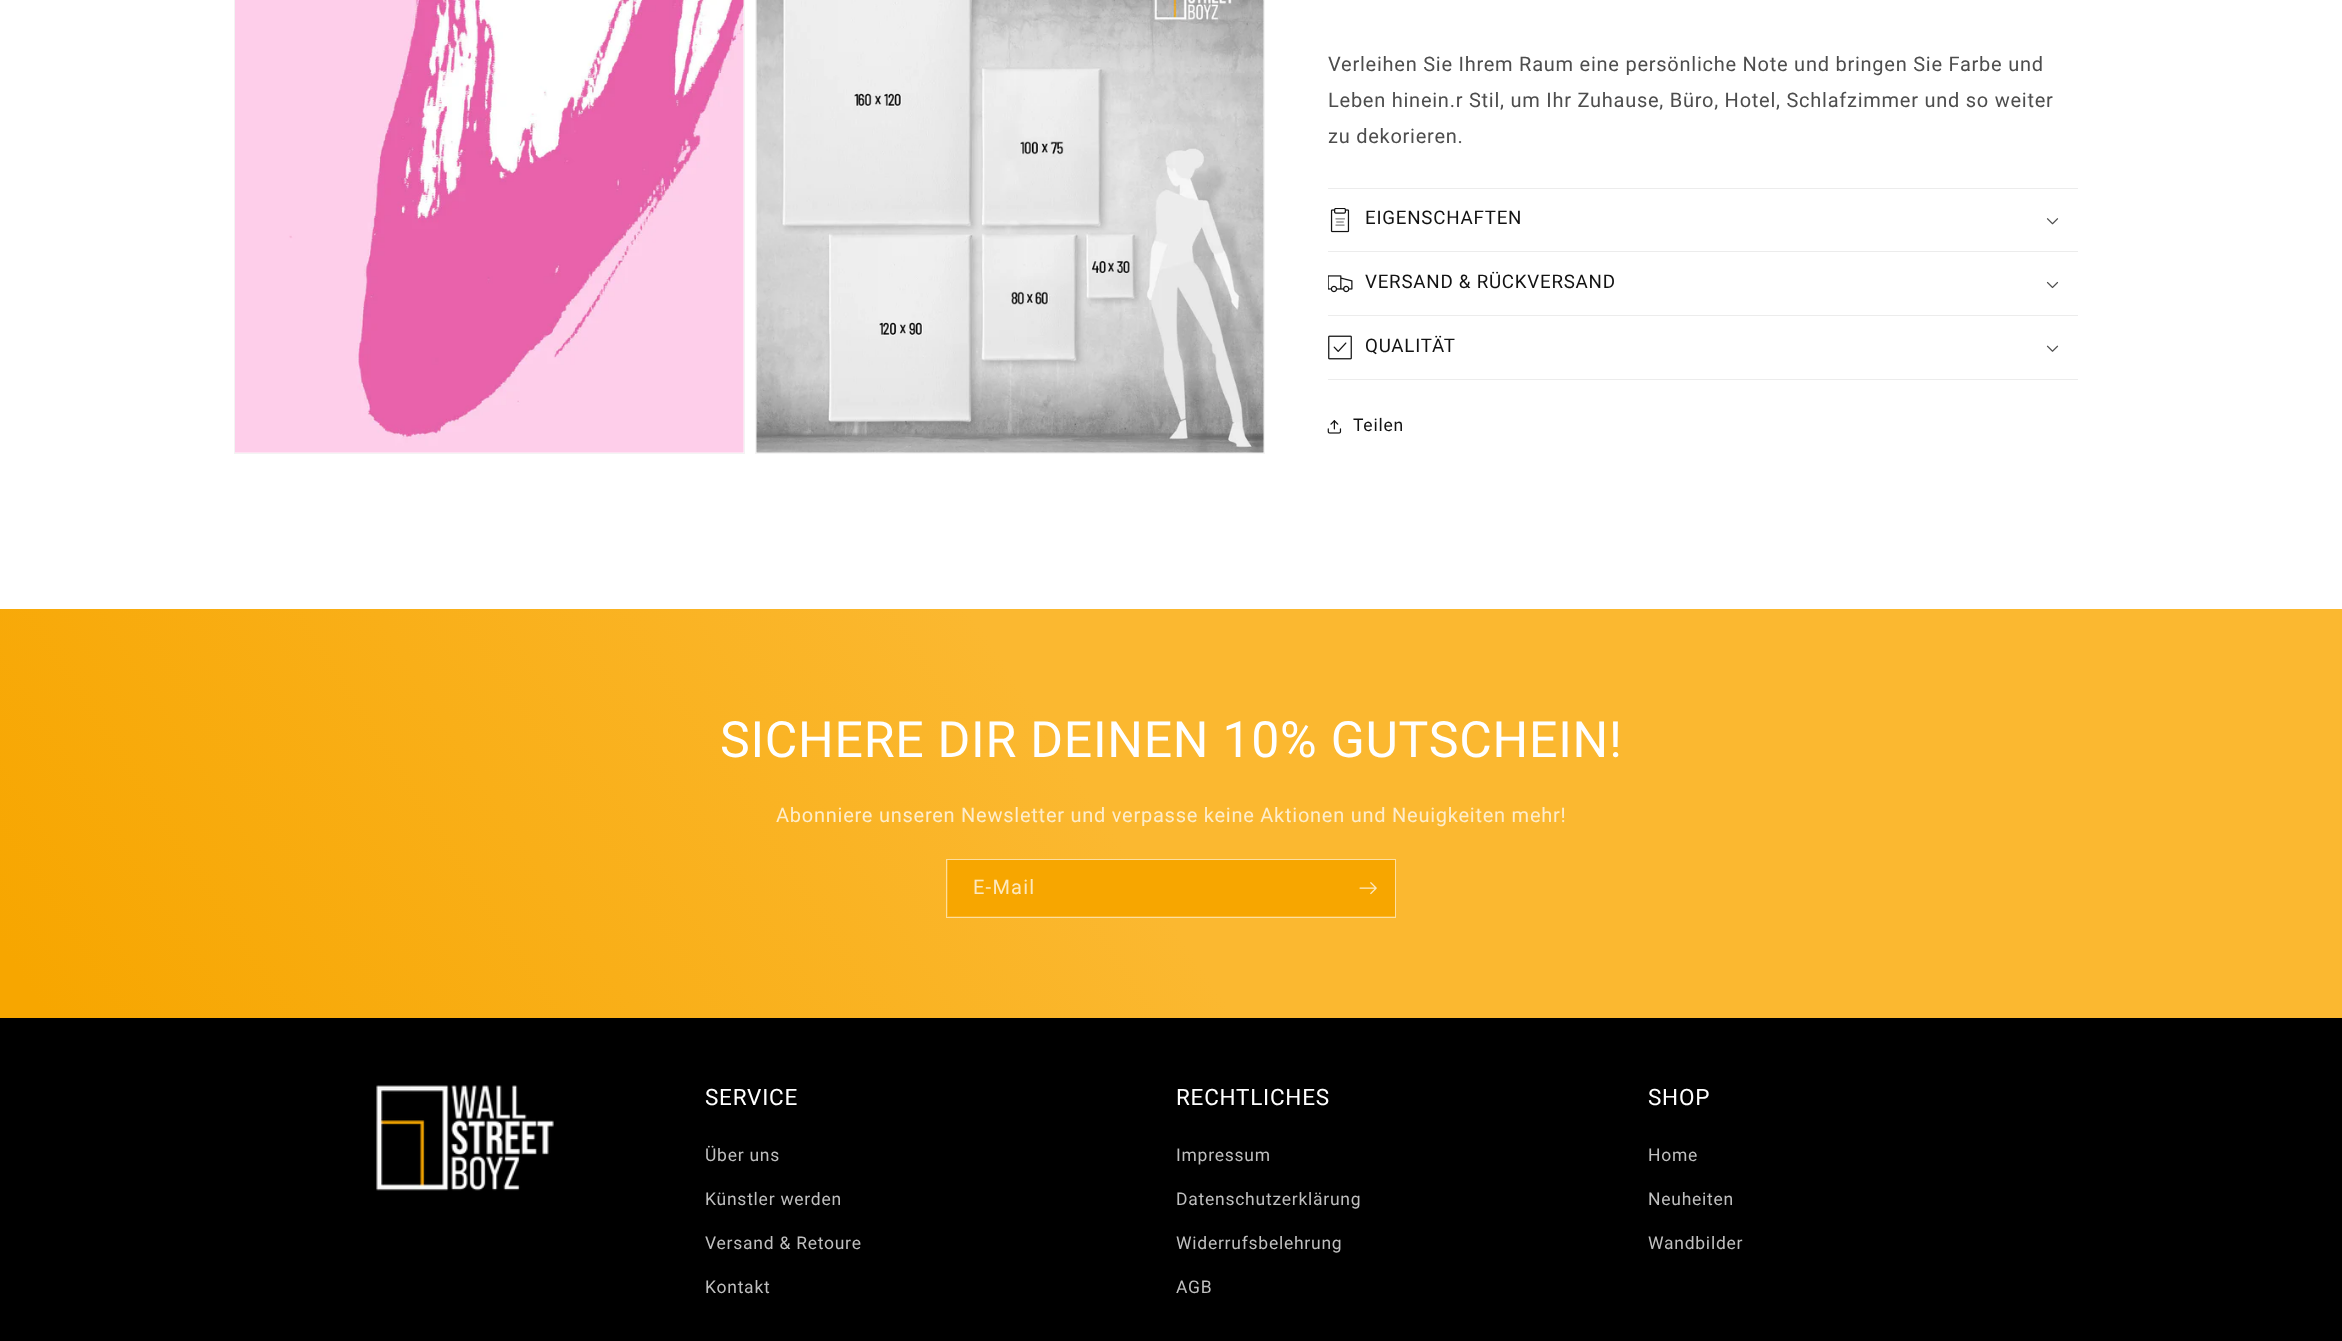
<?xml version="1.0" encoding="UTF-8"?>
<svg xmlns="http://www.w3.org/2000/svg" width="2342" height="1341">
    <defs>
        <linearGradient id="g1" gradientUnits="userSpaceOnUse" x1="41" y1="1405" x2="2301" y2="-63"><stop offset="0.08" stop-color="#F7A600"/><stop offset="0.45" stop-color="#FBB830"/><stop offset="0.8" stop-color="#FBB830"/></linearGradient>
    </defs>
    <rect width="100%" height="100%" fill="#FFFFFF"/>
    <rect x="234.5" y="-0.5" width="510" height="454" fill="none" stroke="#F3F3F3"/>
    <image x="235" y="0" width="509" height="453" href="img_01.png"/>
    <rect x="755.5" y="-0.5" width="509" height="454" fill="none" stroke="#F3F3F3"/>
    <image x="756" y="0" width="508" height="453" href="img_02.png"/>
    <text font-family="Roboto" font-size="20" letter-spacing="0.75" fill="#4D4D4D">
        <tspan x="1328" y="71">Verleihen Sie Ihrem Raum eine persönliche Note und bringen Sie Farbe und</tspan>
        <tspan x="1328" y="107">Leben hinein.r Stil, um Ihr Zuhause, Büro, Hotel, Schlafzimmer und so weiter</tspan>
        <tspan x="1328" y="143">zu dekorieren.</tspan>
    </text>
    <rect x="1328" y="188" width="750" height="1" fill="#ECECEC"/>
    <rect x="1328" y="251" width="750" height="1" fill="#ECECEC"/>
    <image x="1330" y="208" width="20" height="25" href="img_03.png"/>
    <text x="1365" y="224" font-family="Roboto" font-size="18.75" letter-spacing="0.75" fill="#121212">EIGENSCHAFTEN</text>
    <image x="2046" y="218" width="13" height="7" href="img_04.png"/>
    <rect x="1328" y="315" width="750" height="1" fill="#ECECEC"/>
    <image x="1328" y="275" width="25" height="18" href="img_05.png"/>
    <text x="1365" y="288" font-family="Roboto" font-size="18.75" letter-spacing="0.75" fill="#121212">VERSAND &amp; RÜCKVERSAND</text>
    <image x="2046" y="281" width="13" height="8" href="img_06.png"/>
    <rect x="1328" y="379" width="750" height="1" fill="#ECECEC"/>
    <image x="1328" y="335" width="24" height="25" href="img_07.png"/>
    <text x="1365" y="352" font-family="Roboto" font-size="18.75" letter-spacing="0.75" fill="#121212">QUALITÄT</text>
    <image x="2046" y="345" width="13" height="7" href="img_08.png"/>
    <image x="1327" y="420" width="15" height="14" href="img_09.png"/>
    <text x="1353" y="431" font-family="Roboto" font-size="17.5" letter-spacing="0.75" fill="#121212">Teilen</text>
    <rect x="0" y="609" width="2342" height="409" fill="url(#g1)"/>
    <text x="720" y="757" font-family="Roboto" font-size="50" letter-spacing="0.75" fill="#FFFFFF">SICHERE DIR DEINEN 10% GUTSCHEIN!</text>
    <text x="776" y="822" font-family="Roboto" font-size="20" letter-spacing="0.75" fill="#FEEDCB">Abonniere unseren Newsletter und verpasse keine Aktionen und Neuigkeiten mehr!</text>
    <rect x="948" y="860" width="447" height="56" fill="#F7A600"/>
    <rect x="946.5" y="859.5" width="449" height="58" fill="none" stroke="#FFFFFF" stroke-opacity="0.55"/>
    <text x="973" y="894" font-family="Roboto" font-size="20" letter-spacing="1.25" fill="#FDE9BF">E-Mail</text>
    <image x="1359" y="882" width="18" height="13" href="img_10.png"/>
    <rect x="0" y="1018" width="2342" height="323" fill="#000000"/>
    <image x="376" y="1085" width="178" height="106" href="img_11.png"/>
    <text x="705" y="1105" font-family="Roboto" font-size="22.5" letter-spacing="0.75" fill="#FFFFFF">SERVICE</text>
    <text x="705" y="1161" font-family="Roboto" font-size="17.5" letter-spacing="0.75" fill="#BFBFBF">Über uns</text>
    <text x="705" y="1205" font-family="Roboto" font-size="17.5" letter-spacing="0.75" fill="#BFBFBF">Künstler werden</text>
    <text x="705" y="1249" font-family="Roboto" font-size="17.5" letter-spacing="0.75" fill="#BFBFBF">Versand &amp; Retoure</text>
    <text x="705" y="1293" font-family="Roboto" font-size="17.5" letter-spacing="0.75" fill="#BFBFBF">Kontakt</text>
    <text x="1176" y="1105" font-family="Roboto" font-size="22.5" letter-spacing="0.75" fill="#FFFFFF">RECHTLICHES</text>
    <text x="1176" y="1161" font-family="Roboto" font-size="17.5" letter-spacing="0.75" fill="#BFBFBF">Impressum</text>
    <text x="1176" y="1205" font-family="Roboto" font-size="17.5" letter-spacing="0.75" fill="#BFBFBF">Datenschutzerklärung</text>
    <text x="1176" y="1249" font-family="Roboto" font-size="17.5" letter-spacing="0.75" fill="#BFBFBF">Widerrufsbelehrung</text>
    <text x="1176" y="1293" font-family="Roboto" font-size="17.5" letter-spacing="0.75" fill="#BFBFBF">AGB</text>
    <text x="1648" y="1105" font-family="Roboto" font-size="22.5" letter-spacing="0.75" fill="#FFFFFF">SHOP</text>
    <text x="1648" y="1161" font-family="Roboto" font-size="17.5" letter-spacing="0.75" fill="#BFBFBF">Home</text>
    <text x="1648" y="1205" font-family="Roboto" font-size="17.5" letter-spacing="0.75" fill="#BFBFBF">Neuheiten</text>
    <text x="1648" y="1249" font-family="Roboto" font-size="17.5" letter-spacing="0.75" fill="#BFBFBF">Wandbilder</text>
</svg>
